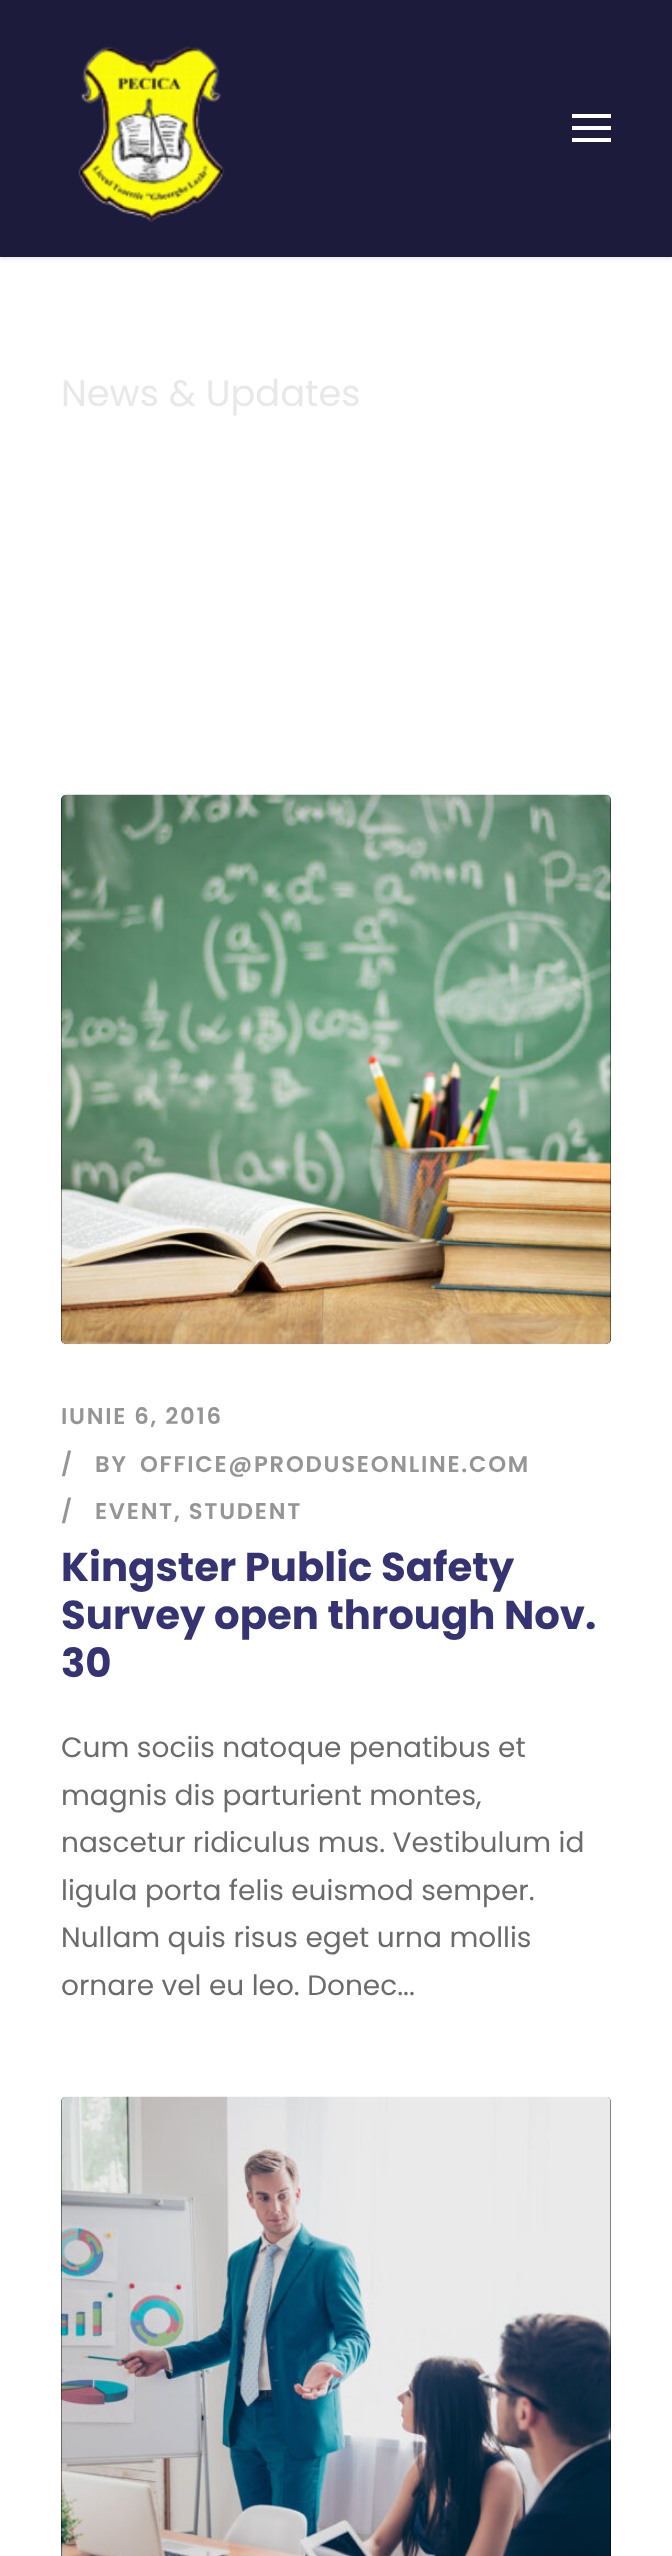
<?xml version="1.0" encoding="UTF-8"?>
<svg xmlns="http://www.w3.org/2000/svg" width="672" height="2556">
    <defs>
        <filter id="blur1" x="-50%" y="-200%" width="200%" height="500%"><feGaussianBlur stdDeviation="2"/></filter>
    </defs>
    <rect width="100%" height="100%" fill="#FFFFFF"/>
    <rect x="0" y="2" width="672" height="257" fill="#000000" fill-opacity="0.1" filter="url(#blur1)"/>
    <rect x="0" y="0" width="672" height="257" fill="#1C1B3B"/>
    <image x="78" y="46" width="147" height="177" href="img_01.png"/>
    <rect x="572" y="114" width="39" height="4" fill="#FFFFFF"/>
    <rect x="572" y="126" width="39" height="4" fill="#FFFFFF"/>
    <rect x="572" y="138" width="39" height="4" fill="#FFFFFF"/>
    <text x="61" y="406" font-family="Poppins" font-size="36.75" fill="#E8E8E8">News &amp; Updates</text>
    <rect x="61" y="795" width="550" height="549" rx="5" fill="#000000"/>
    <image x="61" y="794" width="550" height="550" href="img_02.png"/>
    <text x="61" y="1424" font-family="Poppins" font-size="22.75" font-weight="600" letter-spacing="1.75" fill="#959595">IUNIE 6, 2016</text>
    <text x="61" y="1472" font-family="Poppins" font-size="22.75" font-weight="600" letter-spacing="1.75" fill="#959595">/</text>
    <text x="95" y="1472" font-family="Poppins" font-size="22.75" font-weight="600" letter-spacing="1.75" fill="#959595">BY</text>
    <text x="140" y="1472" font-family="Poppins" font-size="22.75" font-weight="600" letter-spacing="1.75" fill="#959595">OFFICE@PRODUSEONLINE.COM</text>
    <text x="61" y="1519" font-family="Poppins" font-size="22.75" font-weight="600" letter-spacing="1.75" fill="#959595">/</text>
    <text x="95" y="1519" font-family="Poppins" font-size="22.75" font-weight="600" letter-spacing="1.75" fill="#959595">EVENT, STUDENT</text>
    <text font-family="Poppins" font-size="40.25" font-weight="700" fill="#353372">
        <tspan x="61" y="1581">Kingster Public Safety</tspan>
        <tspan x="61" y="1629">Survey open through Nov.</tspan>
        <tspan x="61" y="1677">30</tspan>
    </text>
    <text font-family="Poppins" font-size="28" fill="#6B6B6B">
        <tspan x="61" y="1757">Cum sociis natoque penatibus et</tspan>
        <tspan x="61" y="1805">magnis dis parturient montes,</tspan>
        <tspan x="61" y="1852">nascetur ridiculus mus. Vestibulum id</tspan>
        <tspan x="61" y="1900">ligula porta felis euismod semper.</tspan>
        <tspan x="61" y="1947">Nullam quis risus eget urna mollis</tspan>
        <tspan x="61" y="1995">ornare vel eu leo. Donec...</tspan>
    </text>
    <rect x="61" y="2097" width="550" height="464" rx="5" fill="#000000"/>
    <image x="61" y="2096" width="550" height="460" href="img_03.png"/>
</svg>
